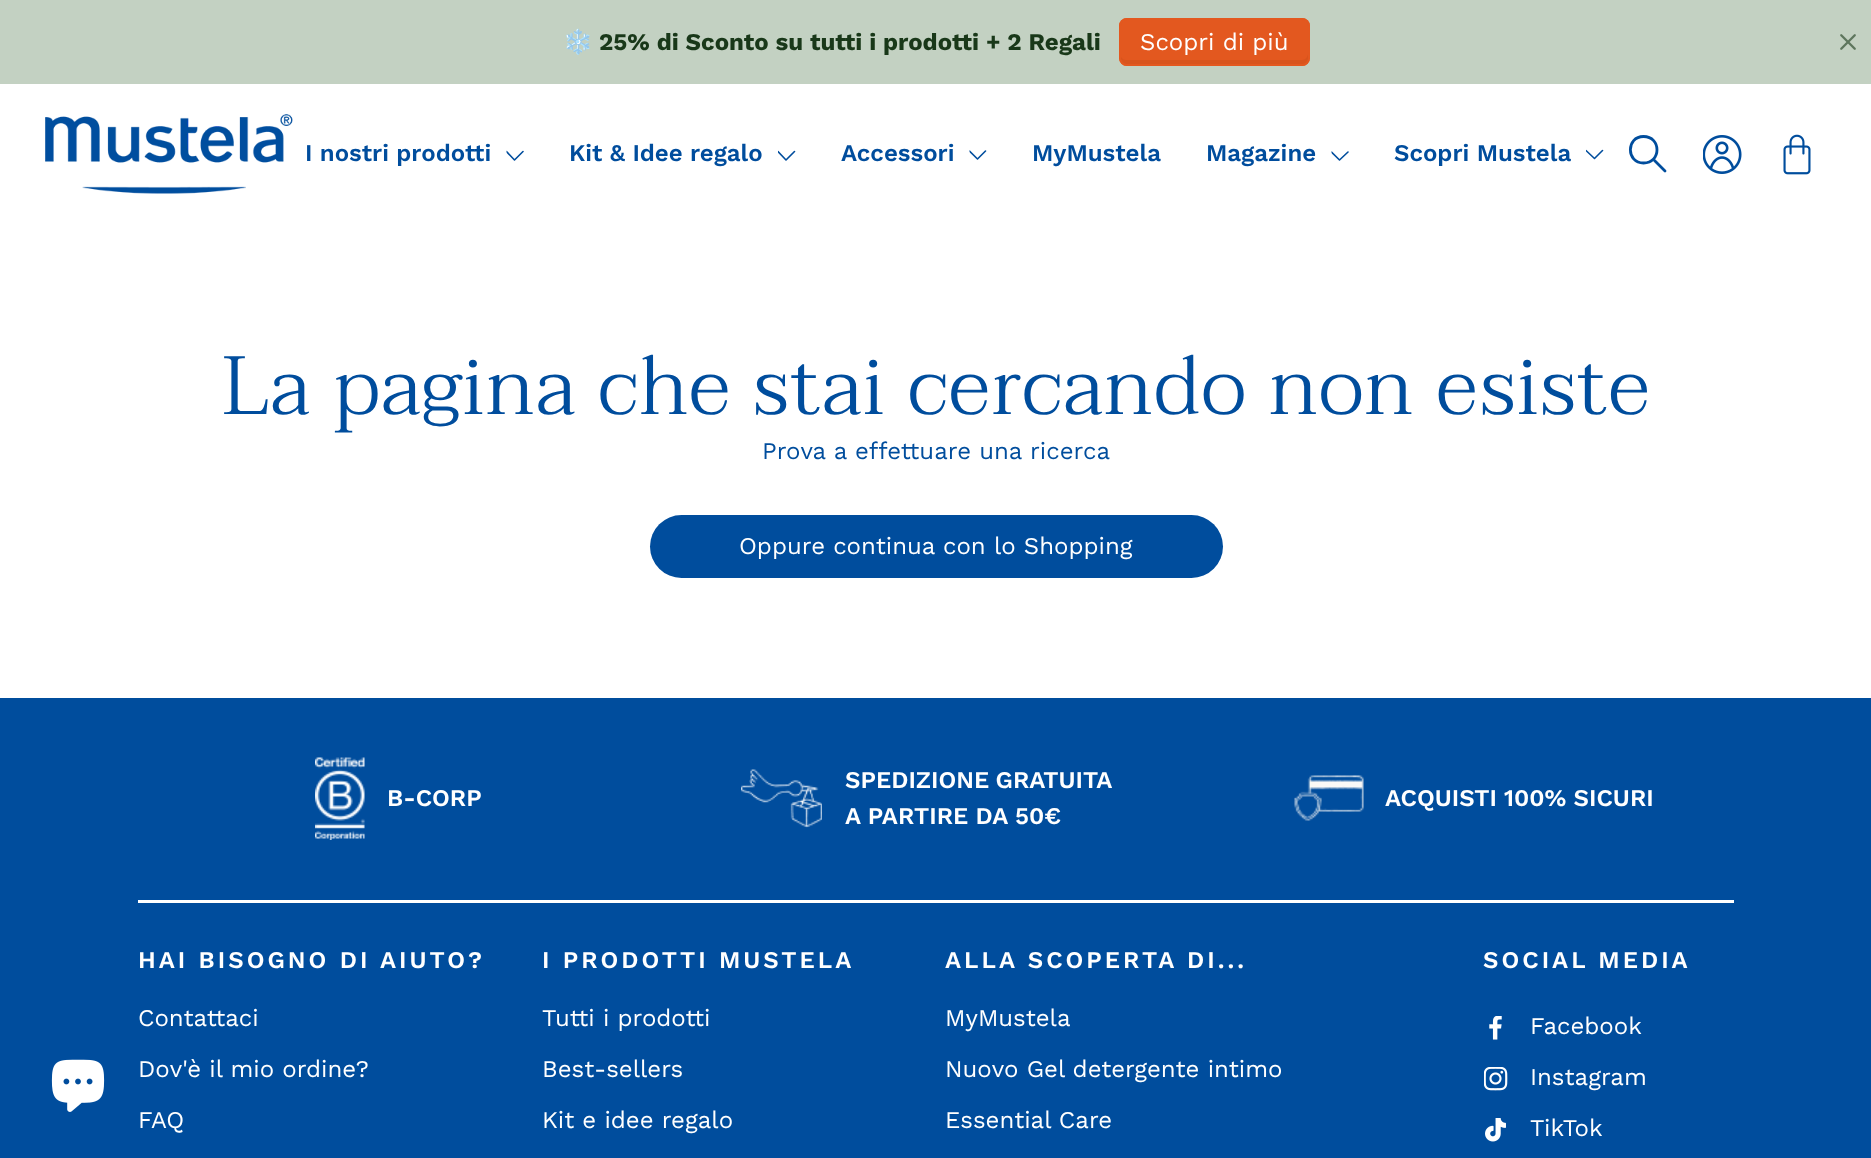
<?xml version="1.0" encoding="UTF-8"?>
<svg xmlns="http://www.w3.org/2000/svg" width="1871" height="1158">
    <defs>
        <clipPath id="clip1"><path d="M 524.5 146 V 164 H 506.5 V 146 Z"/></clipPath>
        <clipPath id="clip2"><path d="M 796 146 V 164 H 778 V 146 Z"/></clipPath>
        <clipPath id="clip3"><path d="M 987.5 146 V 164 H 969.5 V 146 Z"/></clipPath>
        <clipPath id="clip4"><path d="M 1349.5 146 V 164 H 1331.5 V 146 Z"/></clipPath>
        <clipPath id="clip5"><path d="M 1604 146 V 164 H 1586 V 146 Z"/></clipPath>
    </defs>
    <rect width="100%" height="100%" fill="#FFFFFF"/>
    <rect x="0" y="0" width="1871" height="84" fill="#C3D1C2"/>
    <text x="563" y="50" font-family="Noto Color Emoji" font-size="24" font-weight="700" fill="#193819">❄️</text>
    <text x="599" y="50" font-family="Work Sans" font-size="24" font-weight="700" fill="#193819">25% di Sconto su tutti i prodotti + 2 Regali</text>
    <rect x="1119" y="18" width="191" height="48" rx="8" fill="#E3581F"/>
    <path d="M 1121 57 V 59 C 1121 62 1124 65 1127 65 H 1302 C 1305 65 1308 62 1308 59 V 54 C 1308 57 1305 60 1302 60 H 1126 C 1124 60 1122 59 1121 57 Z" fill="#D8541D"/>
    <rect x="1120" y="19" width="189" height="46" rx="7" fill="none" stroke="#E3581F" stroke-width="2"/>
    <text x="1140" y="50" font-family="Work Sans" font-size="24" fill="#FFFFFF">Scopri di più</text>
    <image x="1840" y="34" width="16" height="16" href="img_01.png"/>
    <image x="45" y="114" width="248" height="80" href="img_02.png"/>
    <text x="305" y="161" font-family="Work Sans" font-size="24" font-weight="600" fill="#004D9D">I nostri prodotti</text>
    <g clip-path="url(#clip1)">
        <path d="M 523 151.5 L 514.5 160 L 506.5 151.5" fill="none" stroke="#004D9D" stroke-width="1.6" stroke-linecap="round" stroke-linejoin="round"/>
    </g>
    <text x="569" y="161" font-family="Work Sans" font-size="24" font-weight="600" fill="#004D9D">Kit &amp; Idee regalo</text>
    <g clip-path="url(#clip2)">
        <path d="M 794.5 151.5 L 786 160 L 778 151.5" fill="none" stroke="#004D9D" stroke-width="1.6" stroke-linecap="round" stroke-linejoin="round"/>
    </g>
    <text x="841" y="161" font-family="Work Sans" font-size="24" font-weight="600" fill="#004D9D">Accessori</text>
    <g clip-path="url(#clip3)">
        <path d="M 985.5 151 L 977.5 159 L 969.5 151" fill="none" stroke="#004D9D" stroke-width="1.6" stroke-linecap="round" stroke-linejoin="round"/>
    </g>
    <text x="1032" y="161" font-family="Work Sans" font-size="24" font-weight="600" fill="#004D9D">MyMustela</text>
    <text x="1206" y="161" font-family="Work Sans" font-size="24" font-weight="600" fill="#004D9D">Magazine</text>
    <g clip-path="url(#clip4)">
        <path d="M 1348 152 L 1339.5 160 L 1331.5 152" fill="none" stroke="#004D9D" stroke-width="1.6" stroke-linecap="round" stroke-linejoin="round"/>
    </g>
    <text x="1394" y="161" font-family="Work Sans" font-size="24" font-weight="600" fill="#004D9D">Scopri Mustela</text>
    <g clip-path="url(#clip5)">
        <path d="M 1602.5 150.5 L 1594.5 158.5 L 1586 150.5" fill="none" stroke="#004D9D" stroke-width="1.6" stroke-linecap="round" stroke-linejoin="round"/>
    </g>
    <path d="M 1643.5 136.5 C 1626 136.5 1626 163 1643.5 163 C 1661.5 163 1661.5 136.5 1643.5 136.5 Z" fill="none" stroke="#004D9D" stroke-width="2.8"/>
    <path d="M 1654.5 160.5 L 1665 171" fill="none" stroke="#004D9D" stroke-width="2.8" stroke-linecap="round"/>
    <image x="1703" y="135" width="39" height="39" href="img_03.png"/>
    <image x="1783" y="134" width="28" height="41" href="img_04.png"/>
    <text x="222" y="414" font-family="Taviraj" font-size="82.5" font-weight="300" letter-spacing="0.75" fill="#004D9D">La pagina che stai cercando non esiste</text>
    <text x="762" y="459" font-family="Work Sans" font-size="24" fill="#004D9D">Prova a effettuare una ricerca</text>
    <rect x="650" y="515" width="573" height="63" rx="31.5" fill="#004D9D"/>
    <text x="739" y="554" font-family="Work Sans" font-size="24" fill="#FFFFFF">Oppure continua con lo Shopping</text>
    <rect x="0" y="698" width="1871" height="460" fill="#004D9D"/>
    <rect x="138" y="900" width="1596" height="3" fill="#FFFFFF"/>
    <image x="315" y="757" width="50" height="83" href="img_05.png"/>
    <text x="387" y="806" font-family="Work Sans" font-size="24" font-weight="600" fill="#FFFFFF">B-CORP</text>
    <image x="741" y="769" width="81" height="59" href="img_06.png"/>
    <text font-family="Work Sans" font-size="24" font-weight="600" fill="#FFFFFF">
        <tspan x="845" y="788" word-spacing="-1">SPEDIZIONE GRATUITA</tspan>
        <tspan x="845" y="824">A PARTIRE DA 50€</tspan>
    </text>
    <image x="1294" y="775" width="70" height="46" href="img_07.png"/>
    <text x="1385" y="806" font-family="Work Sans" font-size="24" font-weight="600" fill="#FFFFFF">ACQUISTI 100% SICURI</text>
    <image x="51" y="1059" width="54" height="53" href="img_08.png"/>
    <text x="138" y="968" font-family="Work Sans" font-size="24" font-weight="600" letter-spacing="3" fill="#FFFFFF">HAI BISOGNO DI AIUTO?</text>
    <text x="138" y="1026" font-family="Work Sans" font-size="24" fill="#FFFFFF">Contattaci</text>
    <text x="138" y="1077" font-family="Work Sans" font-size="24" fill="#FFFFFF">Dov'è il mio ordine?</text>
    <text x="138" y="1128" font-family="Work Sans" font-size="24" fill="#FFFFFF">FAQ</text>
    <text x="542" y="968" font-family="Work Sans" font-size="24" font-weight="600" letter-spacing="3" fill="#FFFFFF">I PRODOTTI MUSTELA</text>
    <text x="542" y="1026" font-family="Work Sans" font-size="24" fill="#FFFFFF">Tutti i prodotti</text>
    <text x="542" y="1077" font-family="Work Sans" font-size="24" fill="#FFFFFF">Best-sellers</text>
    <text x="542" y="1128" font-family="Work Sans" font-size="24" fill="#FFFFFF">Kit e idee regalo</text>
    <text x="945" y="968" font-family="Work Sans" font-size="24" font-weight="600" letter-spacing="3" fill="#FFFFFF">ALLA SCOPERTA DI...</text>
    <text x="945" y="1026" font-family="Work Sans" font-size="24" fill="#FFFFFF">MyMustela</text>
    <text x="945" y="1077" font-family="Work Sans" font-size="24" fill="#FFFFFF">Nuovo Gel detergente intimo</text>
    <text x="945" y="1128" font-family="Work Sans" font-size="24" fill="#FFFFFF">Essential Care</text>
    <text x="1483" y="968" font-family="Work Sans" font-size="24" font-weight="600" letter-spacing="3" fill="#FFFFFF">SOCIAL MEDIA</text>
    <image x="1489" y="1016" width="13" height="24" href="img_09.png"/>
    <text x="1530" y="1034" font-family="Work Sans" font-size="24" fill="#FFFFFF">Facebook</text>
    <image x="1484" y="1067" width="24" height="24" href="img_10.png"/>
    <text x="1530" y="1085" font-family="Work Sans" font-size="24" fill="#FFFFFF">Instagram</text>
    <image x="1485" y="1118" width="21" height="24" href="img_11.png"/>
    <text x="1530" y="1136" font-family="Work Sans" font-size="24" fill="#FFFFFF">TikTok</text>
</svg>
